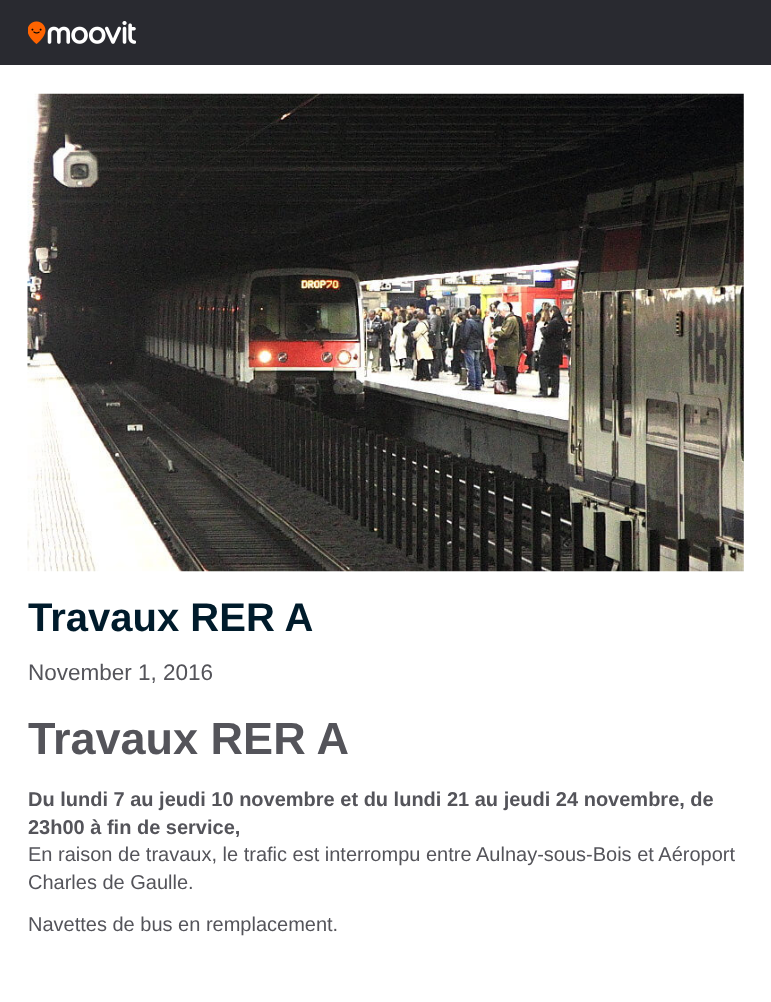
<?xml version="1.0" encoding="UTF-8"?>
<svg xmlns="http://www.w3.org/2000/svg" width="771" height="1002">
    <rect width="100%" height="100%" fill="#FFFFFF"/>
    <rect x="0" y="0" width="771" height="65" fill="#292A30"/>
    <image x="28" y="21" width="108" height="23" href="img_01.png"/>
    <image x="27" y="93" width="717" height="479" href="img_02.png"/>
    <text x="28" y="631" font-family="Liberation Sans" font-size="40" font-weight="700" fill="#001B2B">Travaux RER A</text>
    <text x="28" y="680" font-family="Liberation Sans" font-size="22.5" fill="#54545A">November 1, 2016</text>
    <text x="28" y="754" font-family="Liberation Sans" font-size="45" font-weight="700" fill="#54545A">Travaux RER A</text>
    <text font-family="Liberation Sans" font-size="20" font-weight="700" fill="#54545A">
        <tspan x="28" y="806">Du lundi 7 au jeudi 10 novembre et du lundi 21 au jeudi 24 novembre, de</tspan>
        <tspan x="28" y="834">23h00 à fin de service,</tspan>
    </text>
    <text font-family="Liberation Sans" font-size="20" fill="#54545A">
        <tspan x="28" y="861">En raison de travaux, le trafic est interrompu entre Aulnay-sous-Bois et Aéroport</tspan>
        <tspan x="28" y="889">Charles de Gaulle.</tspan>
    </text>
    <text x="28" y="931" font-family="Liberation Sans" font-size="20" fill="#54545A">Navettes de bus en remplacement.</text>
</svg>
